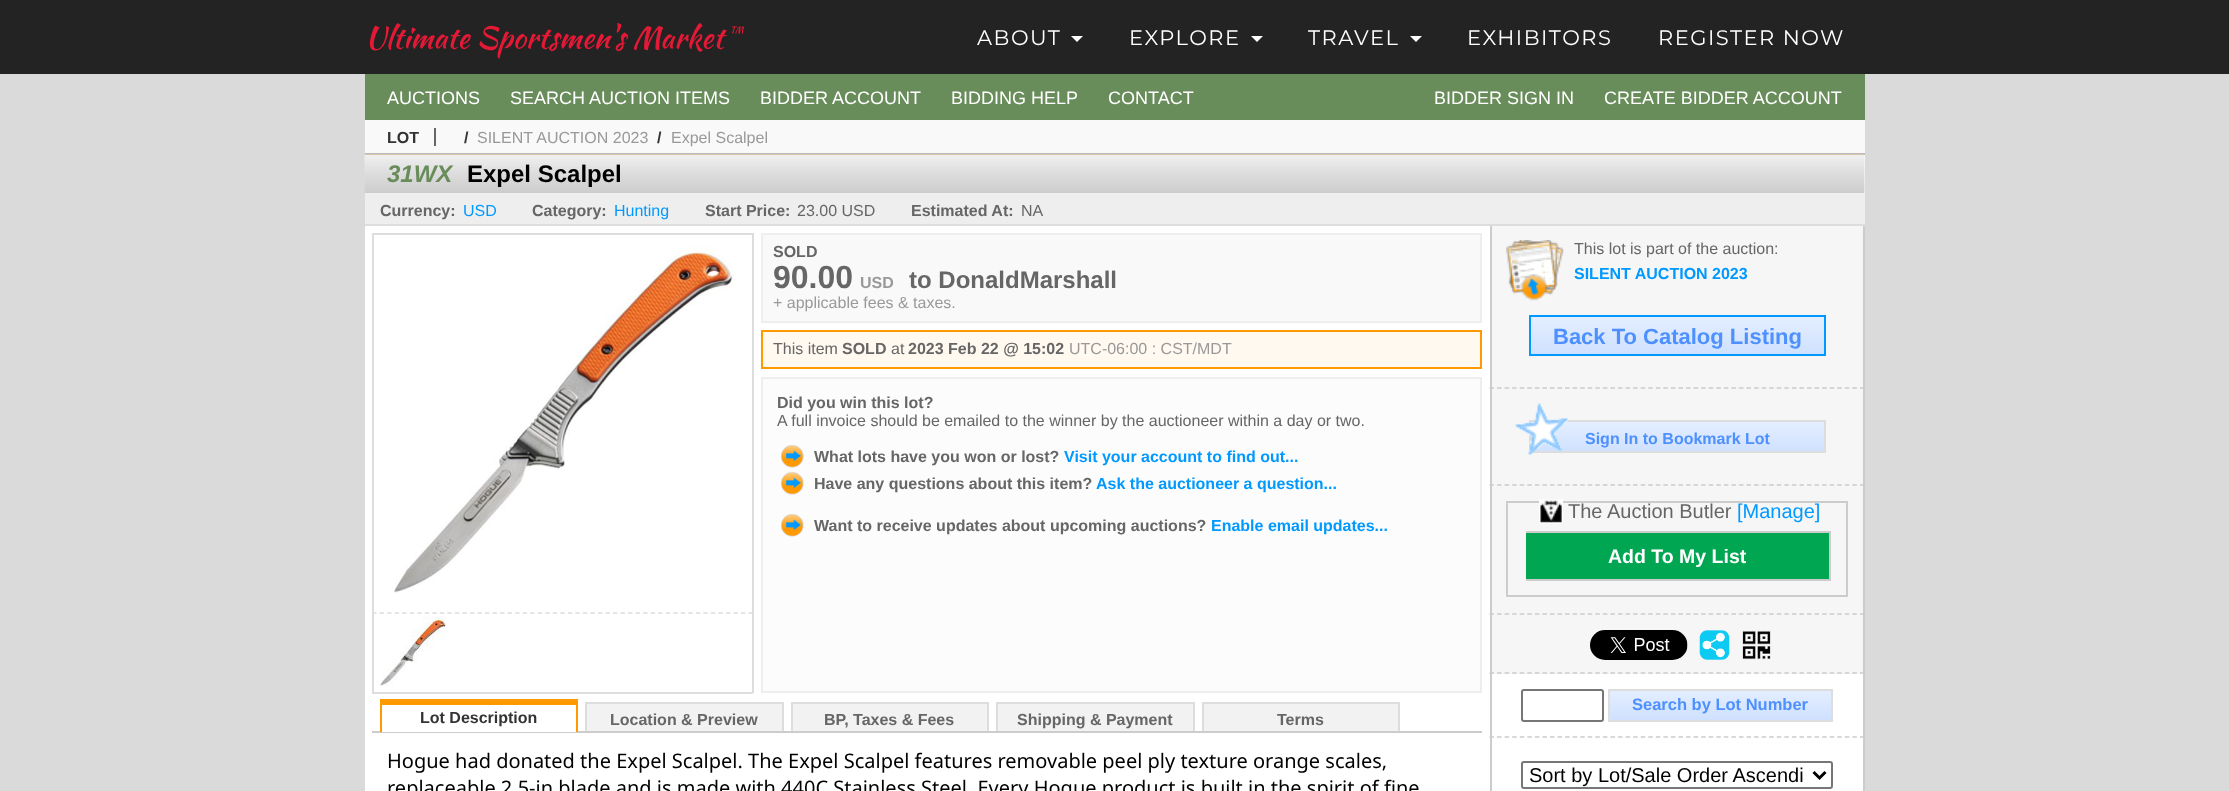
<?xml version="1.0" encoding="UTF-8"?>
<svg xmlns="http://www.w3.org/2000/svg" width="2229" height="791">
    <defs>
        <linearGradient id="g1" gradientUnits="userSpaceOnUse" x1="1677" y1="317" x2="1677" y2="354"><stop offset="0" stop-color="#E4EEFF"/><stop offset="1" stop-color="#CFE1FF"/></linearGradient>
        <linearGradient id="g2" gradientUnits="userSpaceOnUse" x1="1677" y1="422" x2="1677" y2="452"><stop offset="0" stop-color="#E4EEFF"/><stop offset="1" stop-color="#CFE1FF"/></linearGradient>
        <linearGradient id="g3" gradientUnits="userSpaceOnUse" x1="1721" y1="690" x2="1721" y2="720"><stop offset="0" stop-color="#E4EEFF"/><stop offset="1" stop-color="#CFE1FF"/></linearGradient>
    </defs>
    <rect width="100%" height="100%" fill="#DADADA"/>
    <rect x="0" y="0" width="2229" height="74" fill="#232323"/>
    <text x="365" y="48" font-family="Kaushan Script" font-size="30" fill="#E31936">Ultimate Sportsmen's Market</text>
    <text x="730" y="33" font-family="Kaushan Script" font-size="9" fill="#E31936">TM</text>
    <text x="977" y="45" font-family="Montserrat" font-size="21" font-weight="100" letter-spacing="1.5" fill="#FFFFFF">ABOUT</text>
    <path d="M 1071 36 H 1083 L 1077 42 Z" fill="#FFFFFF"/>
    <text x="1129" y="45" font-family="Montserrat" font-size="21" font-weight="100" letter-spacing="1.5" fill="#FFFFFF">EXPLORE</text>
    <path d="M 1251 36 H 1263 L 1257 42 Z" fill="#FFFFFF"/>
    <text x="1308" y="45" font-family="Montserrat" font-size="21" font-weight="100" letter-spacing="1.5" fill="#FFFFFF">TRAVEL</text>
    <path d="M 1410 36 H 1422 L 1416 42 Z" fill="#FFFFFF"/>
    <text x="1467" y="45" font-family="Montserrat" font-size="21" font-weight="100" letter-spacing="1.5" fill="#FFFFFF">EXHIBITORS</text>
    <text x="1658" y="45" font-family="Montserrat" font-size="21" font-weight="100" letter-spacing="1.5" fill="#FFFFFF">REGISTER NOW</text>
    <rect x="365" y="74" width="1500" height="46" fill="#698C5B"/>
    <text x="387" y="104" font-family="Liberation Sans" font-size="18" fill="#FFFFFF">AUCTIONS</text>
    <text x="510" y="104" font-family="Liberation Sans" font-size="18" fill="#FFFFFF">SEARCH AUCTION ITEMS</text>
    <text x="760" y="104" font-family="Liberation Sans" font-size="18" fill="#FFFFFF">BIDDER ACCOUNT</text>
    <text x="951" y="104" font-family="Liberation Sans" font-size="18" fill="#FFFFFF">BIDDING HELP</text>
    <text x="1108" y="104" font-family="Liberation Sans" font-size="18" fill="#FFFFFF">CONTACT</text>
    <text x="1434" y="104" font-family="Liberation Sans" font-size="18" fill="#FFFFFF">BIDDER SIGN IN</text>
    <text x="1604" y="104" font-family="Liberation Sans" font-size="18" fill="#FFFFFF">CREATE BIDDER ACCOUNT</text>
    <rect x="365" y="155" width="1500" height="636" fill="#FFFFFF"/>
    <rect x="365" y="120" width="1500" height="33" fill="#F9F9F9"/>
    <rect x="365" y="153" width="1500" height="2" fill="#BBBBBB"/>
    <text x="387" y="143" font-family="Liberation Sans" font-size="16" font-weight="700" fill="#333333">LOT</text>
    <rect x="434" y="128" width="2" height="18" fill="#666666"/>
    <text x="464" y="143" font-family="Liberation Sans" font-size="16" font-weight="700" fill="#333333">/</text>
    <text x="477" y="143" font-family="Liberation Sans" font-size="16" fill="#999999">SILENT AUCTION 2023</text>
    <text x="657" y="143" font-family="Liberation Sans" font-size="16" font-weight="700" fill="#333333">/</text>
    <text x="671" y="143" font-family="Liberation Sans" font-size="16" fill="#999999">Expel Scalpel</text>
    <image x="364" y="154" width="1501" height="40" href="img_01.png"/>
    <text x="387" y="182" font-family="Liberation Sans" font-size="24" font-weight="700" font-style="italic" fill="#698C5B">31WX</text>
    <text x="467" y="182" font-family="Liberation Sans" font-size="24" font-weight="700" fill="#000000">Expel Scalpel</text>
    <rect x="365" y="194" width="1500" height="30" fill="#EEEEEE"/>
    <rect x="1863" y="225" width="2" height="566" fill="#CCCCCC"/>
    <rect x="1492" y="226" width="371" height="448" fill="#F6F6F6"/>
    <path d="M 1489.5 388 H 1864.5" fill="none" stroke="#CCCCCC" stroke-width="1.5" stroke-dasharray="4.5 3.06"/>
    <rect x="1490" y="225" width="2" height="164" fill="#CCCCCC"/>
    <rect x="365" y="224" width="1500" height="2" fill="#DDDDDD"/>
    <text x="380" y="216" font-family="Liberation Sans" font-size="16" font-weight="700" fill="#666666">Currency:</text>
    <text x="463" y="216" font-family="Liberation Sans" font-size="16" fill="#0099FF">USD</text>
    <text x="532" y="216" font-family="Liberation Sans" font-size="16" font-weight="700" fill="#666666">Category:</text>
    <text x="614" y="216" font-family="Liberation Sans" font-size="16" fill="#0099FF">Hunting</text>
    <text x="705" y="216" font-family="Liberation Sans" font-size="16" font-weight="700" fill="#666666">Start Price:</text>
    <text x="797" y="216" font-family="Liberation Sans" font-size="16" fill="#666666">23.00 USD</text>
    <text x="911" y="216" font-family="Liberation Sans" font-size="16" font-weight="700" fill="#666666">Estimated At:</text>
    <text x="1021" y="216" font-family="Liberation Sans" font-size="16" fill="#666666">NA</text>
    <rect x="372" y="233" width="381" height="2" fill="#DDDDDD"/>
    <rect x="752" y="233" width="2" height="379" fill="#DDDDDD"/>
    <rect x="372" y="233" width="2" height="379" fill="#DDDDDD"/>
    <image x="394" y="245" width="341" height="348" href="img_02.png"/>
    <path d="M 372 613 H 753" fill="none" stroke="#DDDDDD" stroke-width="1.5" stroke-dasharray="4.5 3.03"/>
    <rect x="752" y="612" width="2" height="81" fill="#DDDDDD"/>
    <rect x="372" y="692" width="381" height="2" fill="#DDDDDD"/>
    <rect x="372" y="612" width="2" height="81" fill="#DDDDDD"/>
    <image x="377" y="616" width="69" height="70" href="img_03.png"/>
    <rect x="762" y="234" width="719" height="88" fill="#F9F9F9" stroke="#EEEEEE" stroke-width="2"/>
    <text x="773" y="257" font-family="Liberation Sans" font-size="16" font-weight="700" fill="#666666">SOLD</text>
    <text x="773" y="288" font-family="Liberation Sans" font-size="32" font-weight="700" fill="#666666">90.00</text>
    <text x="860" y="288" font-family="Liberation Sans" font-size="16" font-weight="700" fill="#999999">USD</text>
    <text x="909" y="288" font-family="Liberation Sans" font-size="24" font-weight="700" fill="#666666">to DonaldMarshall</text>
    <text x="773" y="308" font-family="Liberation Sans" font-size="16" fill="#999999">+ applicable fees &amp; taxes.</text>
    <rect x="762" y="331" width="719" height="37" fill="#FFF9F0" stroke="#FF9900" stroke-width="2"/>
    <text x="773" y="354" font-family="Liberation Sans" font-size="16" fill="#666666">This item</text>
    <text x="842" y="354" font-family="Liberation Sans" font-size="16" font-weight="700" fill="#666666">SOLD</text>
    <text x="891" y="354" font-family="Liberation Sans" font-size="16" fill="#666666">at</text>
    <text x="908" y="354" font-family="Liberation Sans" font-size="16" font-weight="700" fill="#666666">2023 Feb 22 @ 15:02</text>
    <text x="1069" y="354" font-family="Liberation Sans" font-size="16" fill="#999999">UTC-06:00 : CST/MDT</text>
    <rect x="762" y="378" width="719" height="314" fill="#FCFCFC" stroke="#EEEEEE" stroke-width="2"/>
    <text x="777" y="408" font-family="Liberation Sans" font-size="16" font-weight="700" fill="#666666">Did you win this lot?</text>
    <text x="777" y="426" font-family="Liberation Sans" font-size="16" fill="#666666">A full invoice should be emailed to the winner by the auctioneer within a day or two.</text>
    <image x="781" y="445" width="23" height="23" href="img_04.png"/>
    <text x="814" y="462" font-family="Liberation Sans" font-size="16" font-weight="700" fill="#666666">What lots have you won or lost?</text>
    <text x="1064" y="462" font-family="Liberation Sans" font-size="16" font-weight="700" fill="#0099FF">Visit your account to find out...</text>
    <image x="781" y="472" width="23" height="23" href="img_04.png"/>
    <text x="814" y="489" font-family="Liberation Sans" font-size="16" font-weight="700" fill="#666666">Have any questions about this item?</text>
    <text x="1096" y="489" font-family="Liberation Sans" font-size="16" font-weight="700" fill="#0099FF">Ask the auctioneer a question...</text>
    <image x="781" y="514" width="23" height="23" href="img_04.png"/>
    <text x="814" y="531" font-family="Liberation Sans" font-size="16" font-weight="700" fill="#666666">Want to receive updates about upcoming auctions?</text>
    <text x="1211" y="531" font-family="Liberation Sans" font-size="16" font-weight="700" fill="#0099FF">Enable email updates...</text>
    <rect x="372" y="731" width="1110" height="2" fill="#CCCCCC"/>
    <rect x="382" y="731" width="194" height="1" fill="#FFFFFF"/>
    <rect x="380" y="699" width="198" height="6" fill="#FF9900"/>
    <rect x="576" y="699" width="2" height="33" fill="#FF9900"/>
    <rect x="380" y="699" width="2" height="33" fill="#FF9900"/>
    <text x="420" y="723" font-family="Liberation Sans" font-size="16" font-weight="700" fill="#333333">Lot Description</text>
    <rect x="587" y="704" width="195" height="27" fill="#F2F2F2"/>
    <rect x="585" y="702" width="198" height="2" fill="#DDDDDD"/>
    <rect x="782" y="702" width="2" height="29" fill="#DDDDDD"/>
    <rect x="585" y="702" width="2" height="29" fill="#DDDDDD"/>
    <text x="610" y="725" font-family="Liberation Sans" font-size="16" font-weight="700" fill="#666666">Location &amp; Preview</text>
    <rect x="793" y="704" width="194" height="27" fill="#F2F2F2"/>
    <rect x="791" y="702" width="198" height="2" fill="#DDDDDD"/>
    <rect x="987" y="702" width="2" height="29" fill="#DDDDDD"/>
    <rect x="791" y="702" width="2" height="29" fill="#DDDDDD"/>
    <text x="824" y="725" font-family="Liberation Sans" font-size="16" font-weight="700" fill="#666666">BP, Taxes &amp; Fees</text>
    <rect x="998" y="704" width="195" height="27" fill="#F2F2F2"/>
    <rect x="996" y="702" width="198" height="2" fill="#DDDDDD"/>
    <rect x="1193" y="702" width="2" height="29" fill="#DDDDDD"/>
    <rect x="996" y="702" width="2" height="29" fill="#DDDDDD"/>
    <text x="1017" y="725" font-family="Liberation Sans" font-size="16" font-weight="700" fill="#666666">Shipping &amp; Payment</text>
    <rect x="1204" y="704" width="194" height="27" fill="#F2F2F2"/>
    <rect x="1202" y="702" width="198" height="2" fill="#DDDDDD"/>
    <rect x="1398" y="702" width="2" height="29" fill="#DDDDDD"/>
    <rect x="1202" y="702" width="2" height="29" fill="#DDDDDD"/>
    <text x="1277" y="725" font-family="Liberation Sans" font-size="16" font-weight="700" fill="#666666">Terms</text>
    <text font-family="Noto Sans" font-size="20" fill="#000000">
        <tspan x="387" y="768">Hogue had donated the Expel Scalpel. The Expel Scalpel features removable peel ply texture orange scales,</tspan>
        <tspan x="387" y="795">replaceable 2.5-in blade and is made with 440C Stainless Steel. Every Hogue product is built in the spirit of fine</tspan>
    </text>
    <image x="1506" y="240" width="58" height="61" href="img_05.png"/>
    <text x="1574" y="254" font-family="Liberation Sans" font-size="16" fill="#666666">This lot is part of the auction:</text>
    <text x="1574" y="279" font-family="Liberation Sans" font-size="16" font-weight="700" fill="#0099FF">SILENT AUCTION 2023</text>
    <rect x="1531" y="317" width="293" height="37" fill="url(#g1)"/>
    <rect x="1530" y="316" width="295" height="39" fill="none" stroke="#0099FF" stroke-width="2"/>
    <text x="1553" y="344" font-family="Liberation Sans" font-size="22" font-weight="700" fill="#4D90FE">Back To Catalog Listing</text>
    <path d="M 1489.5 485 H 1864.5" fill="none" stroke="#CCCCCC" stroke-width="1.5" stroke-dasharray="4.5 3.06"/>
    <rect x="1490" y="389" width="2" height="97" fill="#CCCCCC"/>
    <rect x="1531" y="422" width="293" height="29" fill="url(#g2)"/>
    <rect x="1530" y="421" width="295" height="31" fill="none" stroke="#DDDDDD" stroke-width="2"/>
    <image x="1514" y="402" width="54" height="54" href="img_06.png"/>
    <text x="1585" y="444" font-family="Liberation Sans" font-size="16" font-weight="700" fill="#4D90FE">Sign In to Bookmark Lot</text>
    <path d="M 1489.5 614 H 1864.5" fill="none" stroke="#CCCCCC" stroke-width="1.5" stroke-dasharray="4.5 3.06"/>
    <rect x="1490" y="486" width="2" height="129" fill="#CCCCCC"/>
    <rect x="1507" y="502" width="340" height="94" fill="none" stroke="#CCCCCC" stroke-width="2"/>
    <image x="1539" y="499" width="24" height="25" href="img_07.png"/>
    <text x="1568" y="518" font-family="Liberation Sans" font-size="20" fill="#666666">The Auction Butler</text>
    <text x="1737" y="518" font-family="Liberation Sans" font-size="20" fill="#0099FF">[Manage]</text>
    <rect x="1526" y="533" width="303" height="46" fill="#00A651"/>
    <rect x="1526" y="531" width="304" height="2" fill="#CCCCCC"/>
    <rect x="1829" y="531" width="2" height="50" fill="#CCCCCC"/>
    <rect x="1526" y="579" width="304" height="2" fill="#CCCCCC"/>
    <text x="1608" y="563" font-family="Liberation Sans" font-size="19.5" font-weight="700" fill="#FFFFFF">Add To My List</text>
    <path d="M 1489.5 673 H 1864.5" fill="none" stroke="#CCCCCC" stroke-width="1.5" stroke-dasharray="4.5 3.06"/>
    <rect x="1490" y="615" width="2" height="59" fill="#CCCCCC"/>
    <image x="1590" y="630" width="98" height="30" href="img_08.png"/>
    <image x="1699" y="630" width="31" height="30" href="img_09.png"/>
    <image x="1741" y="630" width="31" height="30" href="img_10.png"/>
    <path d="M 1489.5 737 H 1864.5" fill="none" stroke="#CCCCCC" stroke-width="1.5" stroke-dasharray="4.5 3.06"/>
    <rect x="1490" y="674" width="2" height="117" fill="#CCCCCC"/>
    <rect x="1522" y="690" width="81" height="31" rx="2" fill="none" stroke="#767676" stroke-width="2"/>
    <rect x="1610" y="691" width="221" height="29" fill="url(#g3)"/>
    <rect x="1609" y="690" width="223" height="31" fill="none" stroke="#DDDDDD" stroke-width="2"/>
    <text x="1632" y="710" font-family="Liberation Sans" font-size="16.5" font-weight="700" fill="#4D90FE">Search by Lot Number</text>
    <rect x="1522" y="762" width="310" height="26" rx="2" fill="none" stroke="#767676" stroke-width="2"/>
    <path d="M 1813.5 772 L 1819.5 778 L 1825.5 772" fill="none" stroke="#000000" stroke-width="3"/>
    <text x="1529" y="782" font-family="Liberation Sans" font-size="20" fill="#000000">Sort by Lot/Sale Order Ascendi</text>
</svg>
